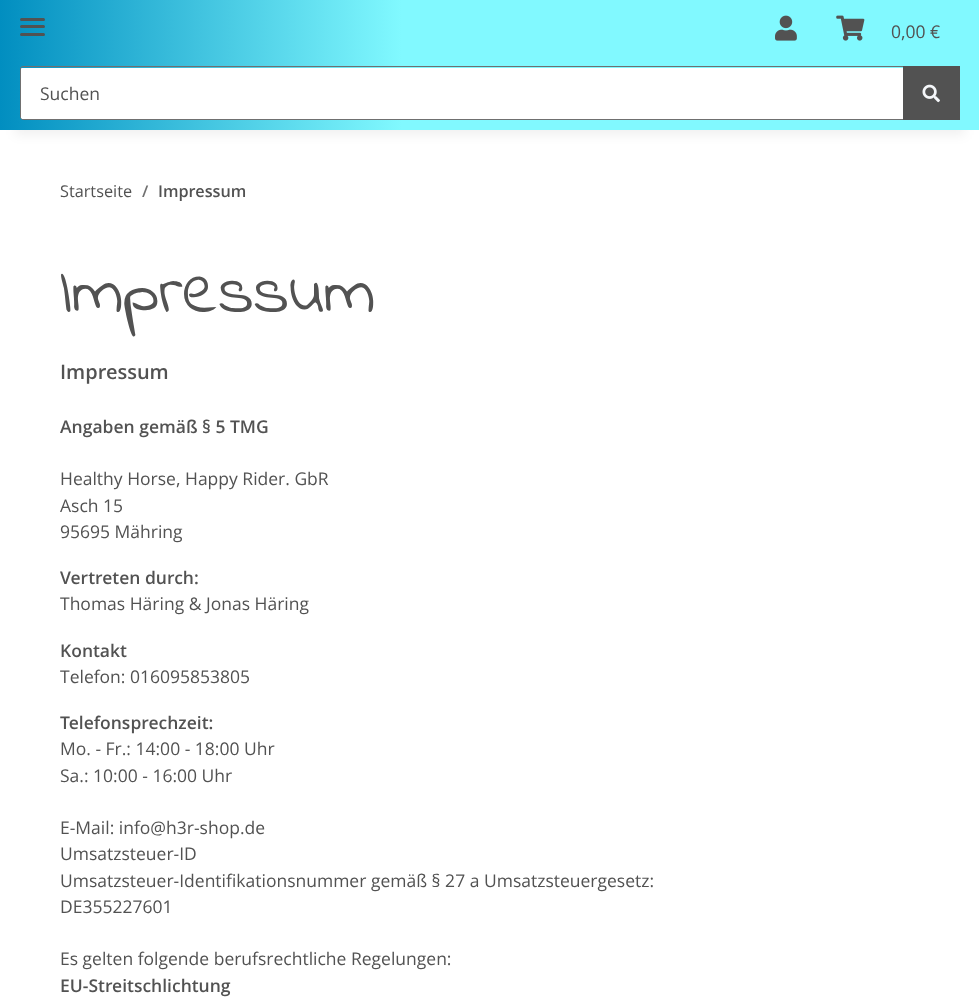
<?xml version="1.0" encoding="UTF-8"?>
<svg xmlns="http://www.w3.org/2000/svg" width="979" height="1002">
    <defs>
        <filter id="blur1" x="-50%" y="-200%" width="200%" height="500%"><feGaussianBlur stdDeviation="5.5"/></filter>
        <linearGradient id="g1" gradientUnits="userSpaceOnUse" x1="0" y1="65" x2="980" y2="65"><stop offset="0" stop-color="#018EC0"/><stop offset="0.41" stop-color="#81F9FF"/><stop offset="1" stop-color="#81F9FF"/></linearGradient>
    </defs>
    <rect width="100%" height="100%" fill="#FFFFFF"/>
    <rect x="15" y="35" width="950" height="100" fill="#000000" fill-opacity="0.06" filter="url(#blur1)"/>
    <rect x="0" y="0" width="979" height="130" fill="url(#g1)"/>
    <rect x="20" y="25" width="25" height="3" rx="1.5" fill="#525252"/>
    <rect x="20" y="18" width="25" height="3" rx="1.5" fill="#525252"/>
    <rect x="20" y="33" width="25" height="3" rx="1.5" fill="#525252"/>
    <image x="775" y="15" width="22" height="26" href="img_01.png"/>
    <image x="836" y="15" width="29" height="26" href="img_02.png"/>
    <text x="891" y="38" font-family="Open Sans" font-size="17.5" fill="#525252">0,00 €</text>
    <path d="M 22 68 H 903 V 119 H 22 C 21.5 119 21 118.5 21 118 V 69 C 21 68.5 21.5 68 22 68 Z" fill="#FFFFFF"/>
    <path d="M 22.5 66.5 H 903.5 V 119.5 H 22.5 C 21.5 119.5 20.5 118.5 20.5 117.5 V 68.5 C 20.5 67.5 21.5 66.5 22.5 66.5 Z" fill="none" stroke="#707070"/>
    <text x="40" y="100" font-family="Open Sans" font-size="17.5" fill="#525252">Suchen</text>
    <rect x="903" y="66" width="57" height="54" fill="#525252"/>
    <image x="922" y="84" width="18" height="19" href="img_03.png"/>
    <text x="60" y="197" font-family="Open Sans" font-size="16.25" fill="#525252">Startseite</text>
    <text x="142" y="197" font-family="Open Sans" font-size="16.25" font-weight="600" fill="#707070">/</text>
    <text x="158" y="197" font-family="Open Sans" font-size="16.25" font-weight="600" fill="#525252">Impressum</text>
    <text x="60" y="312" font-family="Indie Flower" font-size="68.75" fill="#525252">Impressum</text>
    <text x="60" y="379" font-family="Open Sans" font-size="20" font-weight="600" fill="#525252">Impressum</text>
    <text x="60" y="433" font-family="Open Sans" font-size="17.5" font-weight="600" fill="#525252">Angaben gemäß § 5 TMG</text>
    <text font-family="Open Sans" font-size="17.5" fill="#525252">
        <tspan x="60" y="485">Healthy Horse, Happy Rider. GbR</tspan>
        <tspan x="60" y="512">Asch 15</tspan>
        <tspan x="60" y="538">95695 Mähring</tspan>
    </text>
    <text x="60" y="584" font-family="Open Sans" font-size="17.5" font-weight="600" fill="#525252">Vertreten durch:</text>
    <text x="60" y="610" font-family="Open Sans" font-size="17.5" fill="#525252">Thomas Häring &amp; Jonas Häring</text>
    <text x="60" y="657" font-family="Open Sans" font-size="17.5" font-weight="600" fill="#525252">Kontakt</text>
    <text x="60" y="683" font-family="Open Sans" font-size="17.5" fill="#525252">Telefon: 016095853805</text>
    <text x="60" y="729" font-family="Open Sans" font-size="17.5" font-weight="600" fill="#525252">Telefonsprechzeit:</text>
    <text font-family="Open Sans" font-size="17.5" fill="#525252">
        <tspan x="60" y="755">Mo. - Fr.: 14:00 - 18:00 Uhr</tspan>
        <tspan x="60" y="782">Sa.: 10:00 - 16:00 Uhr</tspan>
    </text>
    <text font-family="Open Sans" font-size="17.5" fill="#525252">
        <tspan x="60" y="834">E-Mail: info@h3r-shop.de</tspan>
        <tspan x="60" y="860">Umsatzsteuer-ID</tspan>
        <tspan x="60" y="887">Umsatzsteuer-Identifikationsnummer gemäß § 27 a Umsatzsteuergesetz:</tspan>
        <tspan x="60" y="913">DE355227601</tspan>
    </text>
    <text x="60" y="965" font-family="Open Sans" font-size="17.5" fill="#525252">Es gelten folgende berufsrechtliche Regelungen:</text>
    <text x="60" y="992" font-family="Open Sans" font-size="17.5" font-weight="600" fill="#525252">EU-Streitschlichtung</text>
</svg>
